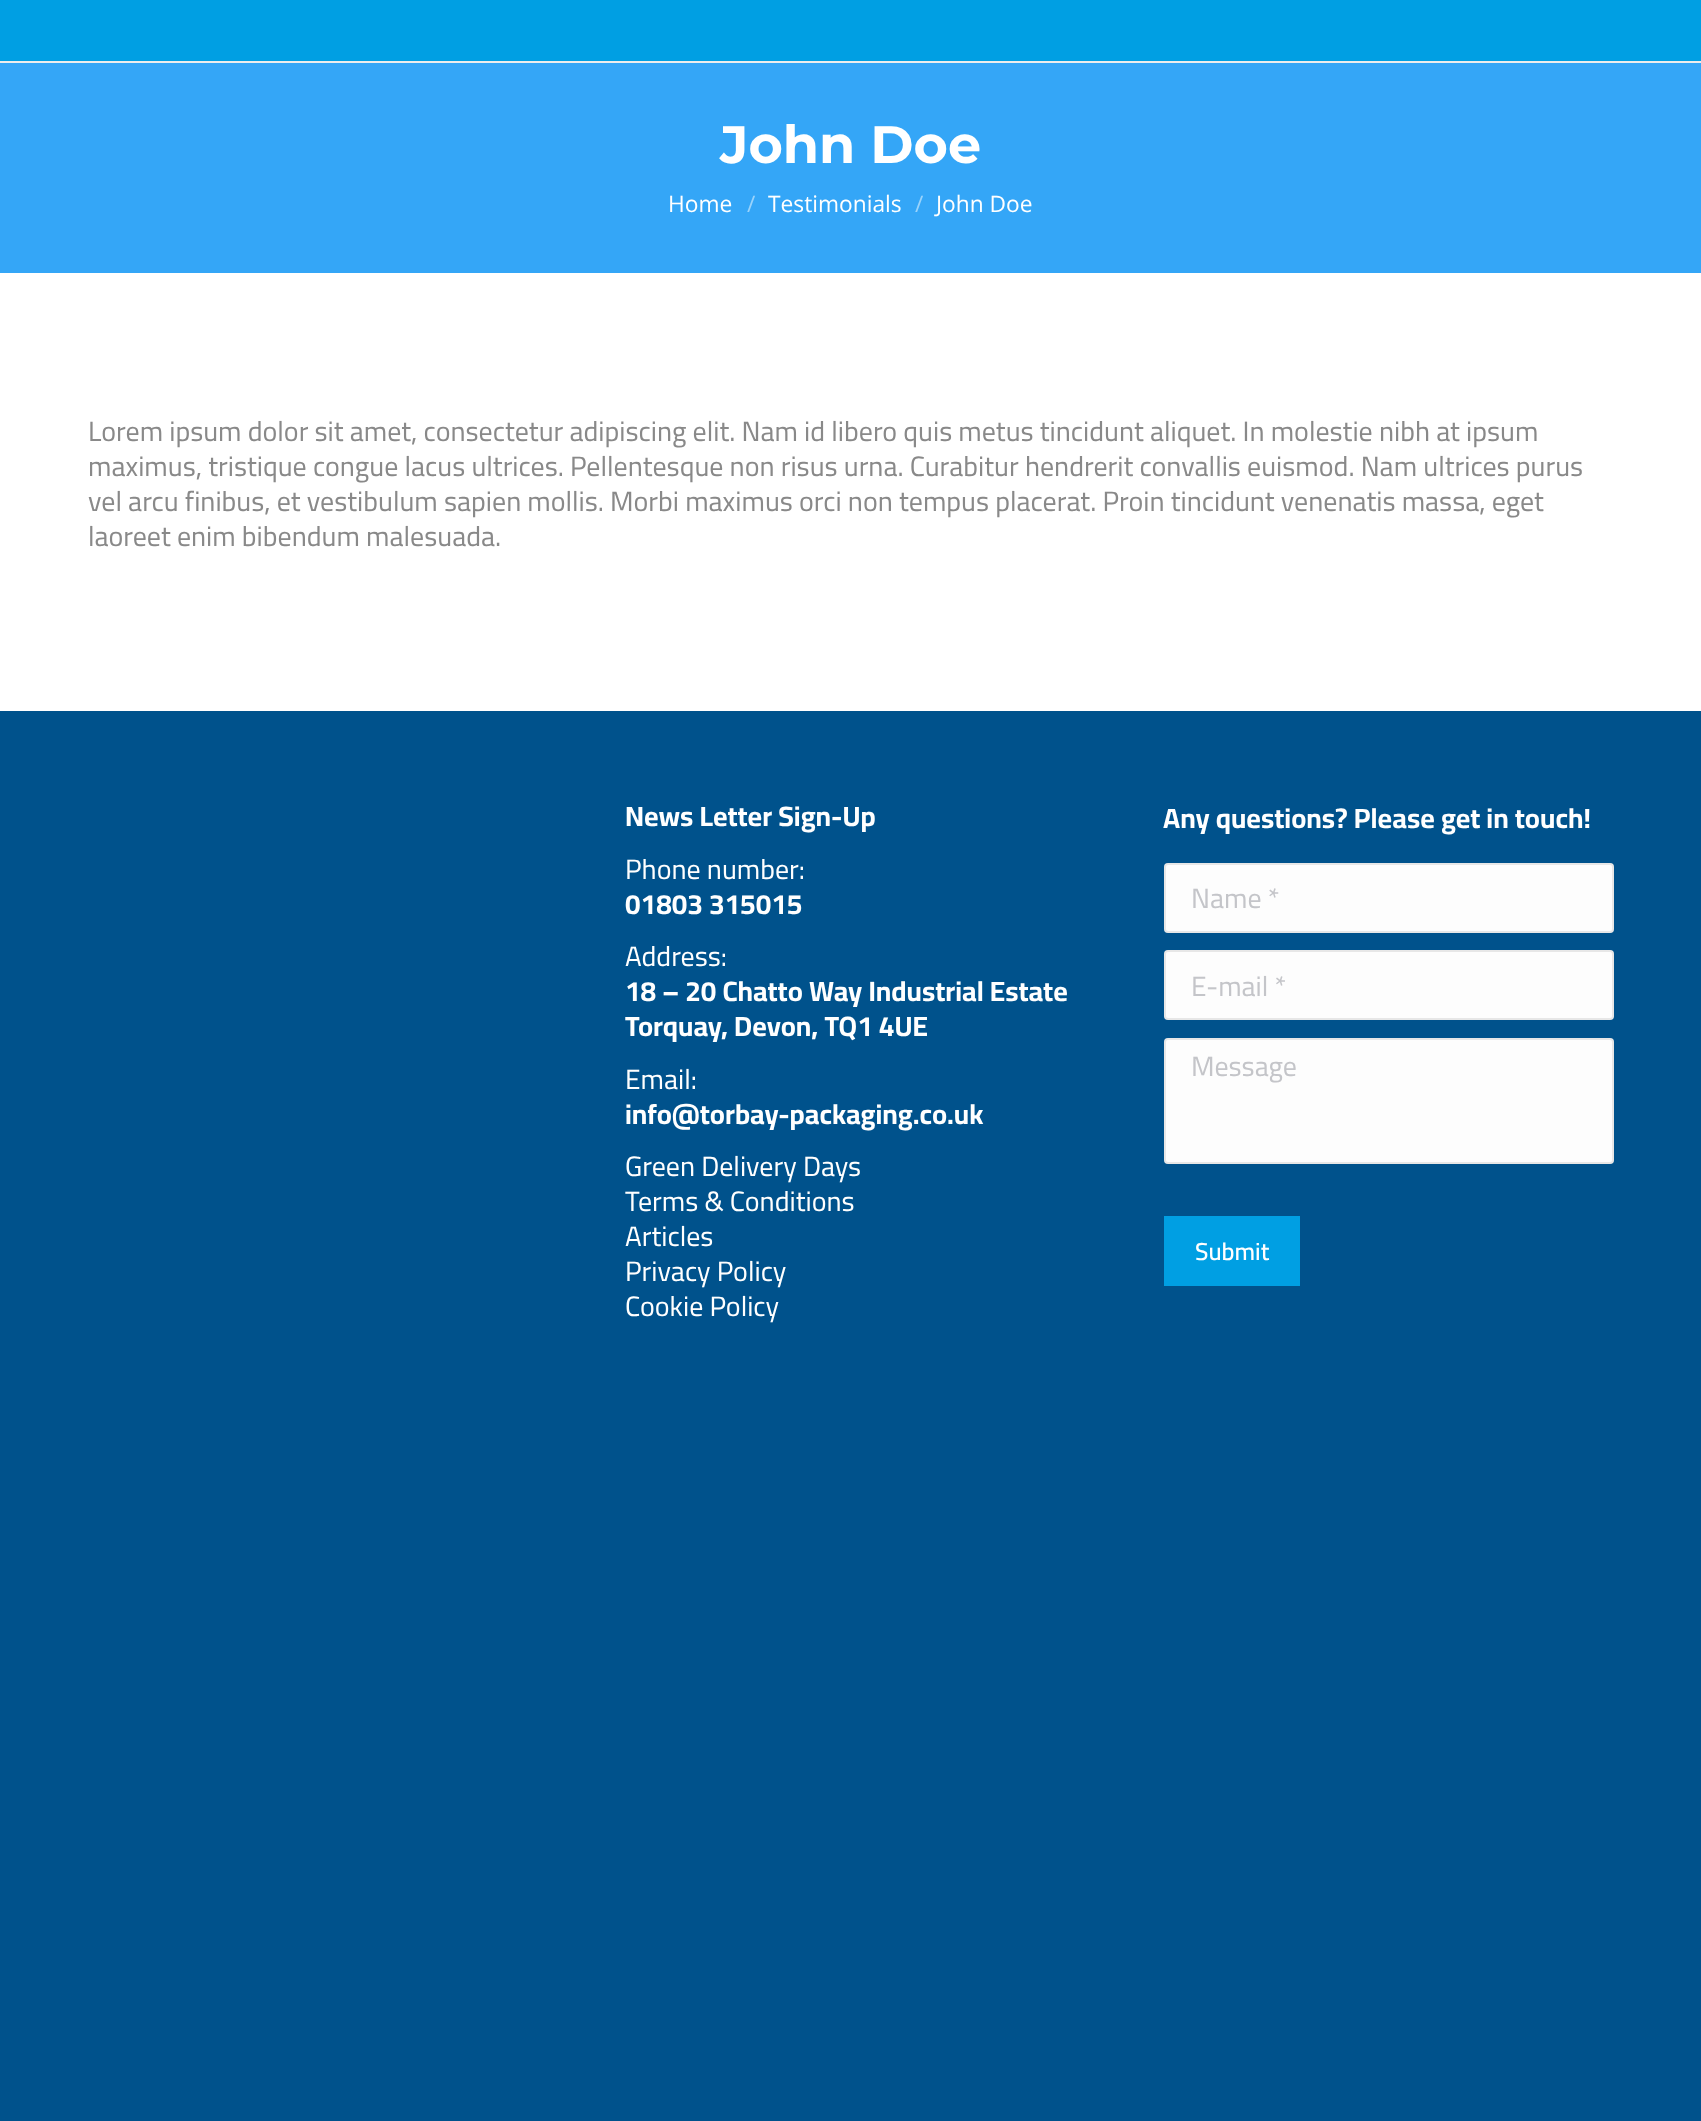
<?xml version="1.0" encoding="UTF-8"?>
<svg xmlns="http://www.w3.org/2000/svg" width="1701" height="2121">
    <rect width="100%" height="100%" fill="#FFFFFF"/>
    <rect x="0" y="0" width="1701" height="61" fill="#009FE3"/>
    <rect x="0" y="61" width="1701" height="2" fill="#EDEDED"/>
    <rect x="0" y="63" width="1701" height="210" fill="#34A6F7"/>
    <text x="720" y="163" font-family="Montserrat" font-size="52.5" font-weight="700" fill="#FFFFFF">John Doe</text>
    <text x="668" y="212" font-family="Open Sans" font-size="22.75" fill="#FFFFFF">Home</text>
    <text x="747" y="212" font-family="Open Sans" font-size="22.75" fill="#9AD3FB">/</text>
    <text x="768" y="212" font-family="Open Sans" font-size="22.75" fill="#FFFFFF">Testimonials</text>
    <text x="915" y="212" font-family="Open Sans" font-size="22.75" fill="#9AD3FB">/</text>
    <text x="936" y="212" font-family="Open Sans" font-size="22.75" fill="#FFFFFF">John Doe</text>
    <text font-family="Cairo" font-size="28" fill="#898989">
        <tspan x="88" y="441">Lorem ipsum dolor sit amet, consectetur adipiscing elit. Nam id libero quis metus tincidunt aliquet. In molestie nibh at ipsum</tspan>
        <tspan x="88" y="476">maximus, tristique congue lacus ultrices. Pellentesque non risus urna. Curabitur hendrerit convallis euismod. Nam ultrices purus</tspan>
        <tspan x="88" y="511">vel arcu finibus, et vestibulum sapien mollis. Morbi maximus orci non tempus placerat. Proin tincidunt venenatis massa, eget</tspan>
        <tspan x="88" y="546">laoreet enim bibendum malesuada.</tspan>
    </text>
    <rect x="0" y="711" width="1701" height="1410" fill="#00528C"/>
    <text x="625" y="826" font-family="Cairo" font-size="28" font-weight="700" fill="#FFFFFF">News Letter Sign-Up</text>
    <text x="625" y="879" font-family="Cairo" font-size="28" fill="#FFFFFF">Phone number:</text>
    <text x="625" y="914" font-family="Cairo" font-size="28" font-weight="700" fill="#FFFFFF">01803 315015</text>
    <text x="625" y="966" font-family="Cairo" font-size="28" fill="#FFFFFF">Address:</text>
    <text font-family="Cairo" font-size="28" font-weight="700" fill="#FFFFFF">
        <tspan x="625" y="1001">18 – 20 Chatto Way Industrial Estate</tspan>
        <tspan x="625" y="1036">Torquay, Devon, TQ1 4UE</tspan>
    </text>
    <text x="625" y="1089" font-family="Cairo" font-size="28" fill="#FFFFFF">Email:</text>
    <text x="625" y="1124" font-family="Cairo" font-size="28" font-weight="700" fill="#FFFFFF">info@torbay-packaging.co.uk</text>
    <text font-family="Cairo" font-size="28" fill="#FFFFFF">
        <tspan x="625" y="1176">Green Delivery Days</tspan>
        <tspan x="625" y="1211">Terms &amp; Conditions</tspan>
        <tspan x="625" y="1246">Articles</tspan>
        <tspan x="625" y="1281">Privacy Policy</tspan>
        <tspan x="625" y="1316">Cookie Policy</tspan>
    </text>
    <text x="1163" y="828" font-family="Cairo" font-size="28" font-weight="700" fill="#FFFFFF">Any questions? Please get in touch!</text>
    <rect x="1164" y="863" width="450" height="70" rx="4" fill="#FDFDFD"/>
    <rect x="1165" y="864" width="448" height="68" rx="3" fill="none" stroke="#333333" stroke-opacity="0.11" stroke-width="2"/>
    <text x="1191" y="908" font-family="Cairo" font-size="28" fill="#C4C5C9">Name *</text>
    <rect x="1164" y="950" width="450" height="70" rx="4" fill="#FDFDFD"/>
    <rect x="1165" y="951" width="448" height="68" rx="3" fill="none" stroke="#333333" stroke-opacity="0.11" stroke-width="2"/>
    <text x="1191" y="996" font-family="Cairo" font-size="28" fill="#C4C5C9">E-mail *</text>
    <rect x="1164" y="1038" width="450" height="126" rx="4" fill="#FDFDFD"/>
    <rect x="1165" y="1039" width="448" height="124" rx="3" fill="none" stroke="#333333" stroke-opacity="0.11" stroke-width="2"/>
    <text x="1191" y="1076" font-family="Cairo" font-size="28" fill="#C4C5C9">Message</text>
    <rect x="1164" y="1216" width="136" height="70" fill="#009FE3"/>
    <text x="1195" y="1260" font-family="Cairo" font-size="24.5" font-weight="600" fill="#FFFFFF">Submit</text>
</svg>
